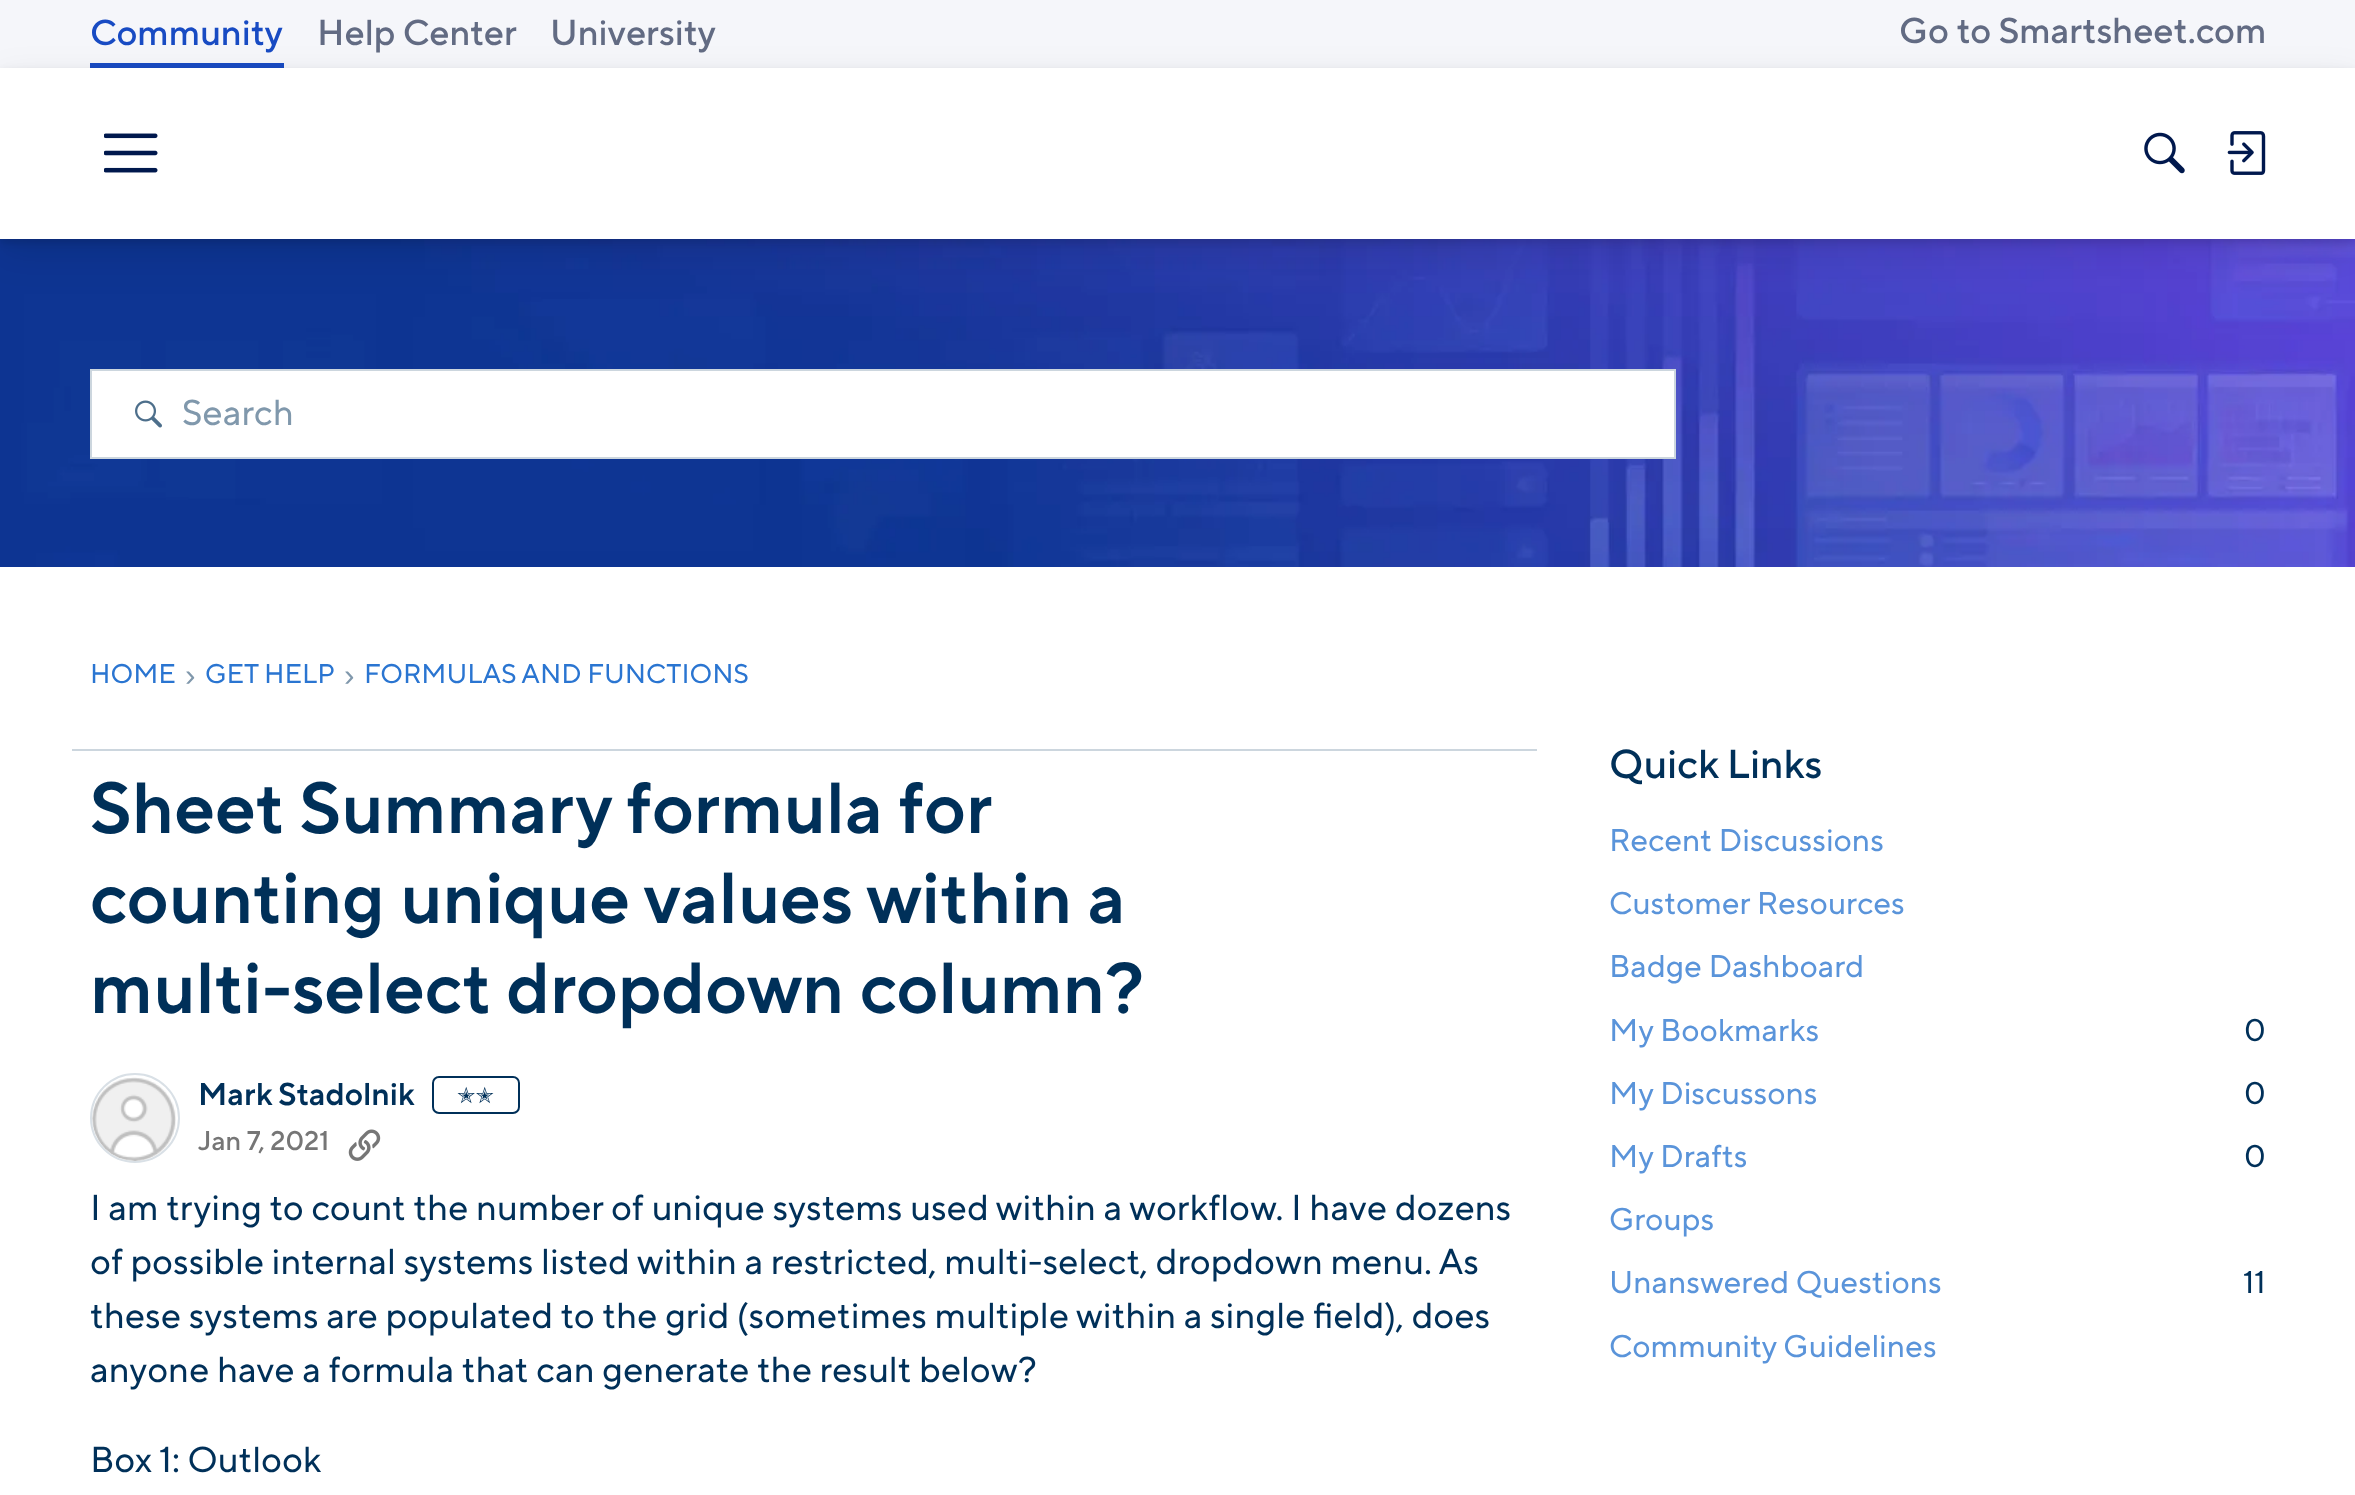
<?xml version="1.0" encoding="UTF-8"?>
<svg xmlns="http://www.w3.org/2000/svg" width="2355" height="1495">
    <defs>
        <filter id="blur1" x="-50%" y="-200%" width="200%" height="500%"><feGaussianBlur stdDeviation="18"/></filter>
        <filter id="blur2" x="-50%" y="-200%" width="200%" height="500%"><feGaussianBlur stdDeviation="4.5"/></filter>
    </defs>
    <rect width="100%" height="100%" fill="#FFFFFF"/>
    <rect x="0" y="0" width="2355" height="68" fill="#F5F6FA"/>
    <text x="90" y="45" font-family="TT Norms" font-size="36" font-weight="500" fill="#184BC3">Community</text>
    <rect x="90" y="63" width="194" height="5" fill="#184BC3"/>
    <text x="317" y="45" font-family="TT Norms" font-size="36" font-weight="500" fill="#626B83">Help Center</text>
    <text x="550" y="45" font-family="TT Norms" font-size="36" font-weight="500" fill="#626B83">University</text>
    <text x="1899" y="43" font-family="TT Norms" font-size="36" font-weight="500" fill="#626B83">Go to Smartsheet.com</text>
    <image x="0" y="239" width="2355" height="328" href="img_04.png"/>
    <rect x="0" y="81" width="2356" height="171" fill="#000000" fill-opacity="0.1" filter="url(#blur1)"/>
    <rect x="0" y="72" width="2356" height="171" fill="#000000" fill-opacity="0.12" filter="url(#blur2)"/>
    <rect x="0" y="68" width="2355" height="171" fill="#FFFFFF"/>
    <image x="104" y="133" width="54" height="40" href="img_01.png"/>
    <image x="2144" y="132" width="41" height="42" href="img_02.png"/>
    <image x="2227" y="131" width="39" height="44" href="img_03.png"/>
    <rect x="91" y="370" width="1584" height="88" fill="#FFFFFF" stroke="#CCD6DE" stroke-width="2"/>
    <image x="135" y="400" width="27" height="28" href="img_05.png"/>
    <text x="182" y="425" font-family="TT Norms" font-size="36" fill="#8098AC">Search</text>
    <text x="90" y="683" font-family="TT Norms" font-size="27" fill="#2A75D1">HOME</text>
    <text x="185" y="686" font-family="Liberation Sans" font-size="31.5" fill="#8098AC">›</text>
    <text x="205" y="683" font-family="TT Norms" font-size="27" fill="#2A75D1">GET HELP</text>
    <text x="344" y="686" font-family="Liberation Sans" font-size="31.5" fill="#8098AC">›</text>
    <text x="364" y="683" font-family="TT Norms" font-size="27" fill="#2A75D1">FORMULAS AND FUNCTIONS</text>
    <rect x="72" y="749" width="1465" height="2" fill="#CCD6DE"/>
    <text font-family="TT Norms" font-size="72" font-weight="600" fill="#003059">
        <tspan x="90" y="833">Sheet Summary formula for</tspan>
        <tspan x="90" y="923">counting unique values within a</tspan>
        <tspan x="90" y="1013">multi-select dropdown column?</tspan>
    </text>
    <circle cx="135" cy="1118" r="44" fill="none" stroke="#D9E0E6" stroke-width="2"/>
    <image x="92" y="1077" width="84" height="84" href="img_06.png"/>
    <text x="198" y="1105" font-family="TT Norms" font-size="31.5" font-weight="600" fill="#003059">Mark Stadolnik</text>
    <rect x="433" y="1077" width="86" height="36" rx="6" fill="none" stroke="#003059" stroke-width="2"/>
    <text x="457" y="1103" font-family="DejaVu Sans" font-size="22" fill="#003059">✭✭</text>
    <text x="198" y="1150" font-family="TT Norms" font-size="27" font-weight="500" fill="#767676">Jan 7, 2021</text>
    <image x="348" y="1129" width="33" height="32" href="img_07.png"/>
    <text font-family="TT Norms" font-size="36" fill="#003059">
        <tspan x="90" y="1220">I am trying to count the number of unique systems used within a workflow. I have dozens</tspan>
        <tspan x="90" y="1274">of possible internal systems listed within a restricted, multi-select, dropdown menu. As</tspan>
        <tspan x="90" y="1328">these systems are populated to the grid (sometimes multiple within a single field), does</tspan>
        <tspan x="90" y="1382">anyone have a formula that can generate the result below?</tspan>
    </text>
    <text x="90" y="1472" font-family="TT Norms" font-size="36" fill="#003059">Box 1: Outlook</text>
    <text x="1609" y="778" font-family="TT Norms" font-size="40.5" font-weight="500" fill="#003059">Quick Links</text>
    <text x="1609" y="851" font-family="TT Norms" font-size="31.5" fill="#5A94DA">Recent Discussions</text>
    <text x="1609" y="914" font-family="TT Norms" font-size="31.5" fill="#5A94DA">Customer Resources</text>
    <text x="1609" y="977" font-family="TT Norms" font-size="31.5" fill="#5A94DA">Badge Dashboard</text>
    <text x="1609" y="1041" font-family="TT Norms" font-size="31.5" fill="#5A94DA">My Bookmarks</text>
    <text x="2244" y="1041" font-family="TT Norms" font-size="31.5" fill="#003059">0</text>
    <text x="1609" y="1104" font-family="TT Norms" font-size="31.5" fill="#5A94DA">My Discussons</text>
    <text x="2244" y="1104" font-family="TT Norms" font-size="31.5" fill="#003059">0</text>
    <text x="1609" y="1167" font-family="TT Norms" font-size="31.5" fill="#5A94DA">My Drafts</text>
    <text x="2244" y="1167" font-family="TT Norms" font-size="31.5" fill="#003059">0</text>
    <text x="1609" y="1230" font-family="TT Norms" font-size="31.5" fill="#5A94DA">Groups</text>
    <text x="1609" y="1293" font-family="TT Norms" font-size="31.5" fill="#5A94DA">Unanswered Questions</text>
    <text x="2243" y="1293" font-family="TT Norms" font-size="31.5" fill="#003059">11</text>
    <text x="1609" y="1357" font-family="TT Norms" font-size="31.5" fill="#5A94DA">Community Guidelines</text>
</svg>
